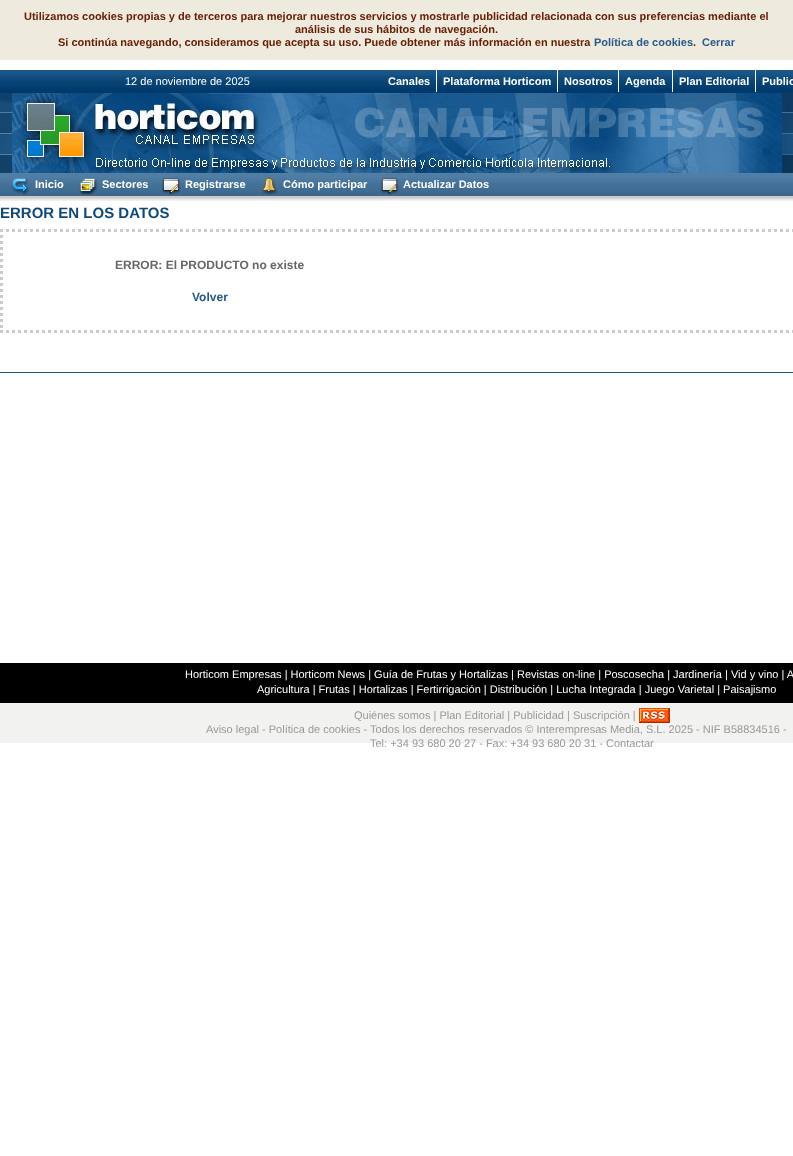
<?xml version="1.0" encoding="UTF-8"?>
<svg xmlns="http://www.w3.org/2000/svg" width="793" height="1156">
    <rect width="100%" height="100%" fill="#FFFFFF"/>
    <rect x="0" y="0" width="793" height="60" fill="#EEEADD"/>
    <text x="24" y="20" font-family="Liberation Sans" font-size="11" font-weight="700" fill="#682008">Utilizamos cookies propias y de terceros para mejorar nuestros servicios y mostrarle publicidad relacionada con sus preferencias mediante el</text>
    <text x="295" y="33" font-family="Liberation Sans" font-size="11" font-weight="700" fill="#682008">análisis de sus hábitos de navegación.</text>
    <text x="58" y="46" font-family="Liberation Sans" font-size="11" font-weight="700" fill="#682008">Si continúa navegando, consideramos que acepta su uso. Puede obtener más información en nuestra</text>
    <text x="594" y="46" font-family="Liberation Sans" font-size="11" font-weight="700" fill="#275B8A">Política de cookies</text>
    <text x="693" y="46" font-family="Liberation Sans" font-size="11" font-weight="700" fill="#682008">.</text>
    <text x="702" y="46" font-family="Liberation Sans" font-size="11" font-weight="700" fill="#275B8A">Cerrar</text>
    <image x="0" y="70" width="793" height="23" href="img_01.png"/>
    <text x="125" y="85" font-family="Liberation Sans" font-size="11" fill="#FFFFFF">12 de noviembre de 2025</text>
    <rect x="436" y="70" width="1" height="22" fill="#FFFFFF"/>
    <text x="388" y="85" font-family="Liberation Sans" font-size="11" font-weight="700" fill="#FFFFFF">Canales</text>
    <rect x="557" y="70" width="1" height="22" fill="#FFFFFF"/>
    <text x="443" y="85" font-family="Liberation Sans" font-size="11" font-weight="700" fill="#FFFFFF">Plataforma Horticom</text>
    <rect x="618" y="70" width="1" height="22" fill="#FFFFFF"/>
    <text x="564" y="85" font-family="Liberation Sans" font-size="11" font-weight="700" fill="#FFFFFF">Nosotros</text>
    <rect x="672" y="70" width="1" height="22" fill="#FFFFFF"/>
    <text x="625" y="85" font-family="Liberation Sans" font-size="11" font-weight="700" fill="#FFFFFF">Agenda</text>
    <rect x="755" y="70" width="1" height="22" fill="#FFFFFF"/>
    <text x="679" y="85" font-family="Liberation Sans" font-size="11" font-weight="700" fill="#FFFFFF">Plan Editorial</text>
    <text x="762" y="85" font-family="Liberation Sans" font-size="11" font-weight="700" fill="#FFFFFF">Public</text>
    <image x="0" y="93" width="12" height="80" href="img_02.png"/>
    <image x="12" y="93" width="770" height="80" href="img_03.png"/>
    <image x="782" y="93" width="11" height="80" href="img_04.png"/>
    <image x="0" y="173" width="793" height="23" href="img_05.png"/>
    <image x="11" y="178" width="19" height="17" href="img_06.png"/>
    <text x="35" y="188" font-family="Liberation Sans" font-size="11" font-weight="700" fill="#FFFFFF">Inicio</text>
    <image x="79" y="178" width="19" height="17" href="img_07.png"/>
    <text x="102" y="188" font-family="Liberation Sans" font-size="11" font-weight="700" fill="#FFFFFF">Sectores</text>
    <image x="160" y="174" width="22" height="21" href="img_08.png"/>
    <text x="185" y="188" font-family="Liberation Sans" font-size="11" font-weight="700" fill="#FFFFFF">Registrarse</text>
    <image x="262" y="177" width="16" height="18" href="img_09.png"/>
    <text x="283" y="188" font-family="Liberation Sans" font-size="11" font-weight="700" fill="#FFFFFF">Cómo participar</text>
    <image x="379" y="177" width="21" height="18" href="img_10.png"/>
    <text x="403" y="188" font-family="Liberation Sans" font-size="11" font-weight="700" fill="#FFFFFF">Actualizar Datos</text>
    <image x="0" y="196" width="793" height="5" href="img_11.png"/>
    <text x="0" y="218" font-family="Liberation Sans" font-size="15" font-weight="700" fill="#0D497B">ERROR EN LOS DATOS</text>
    <path d="M 0 230.5 H 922" fill="none" stroke="#CCCCCC" stroke-width="3" stroke-dasharray="3 3"/>
    <path d="M 0 331.5 H 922" fill="none" stroke="#CCCCCC" stroke-width="3" stroke-dasharray="3 3"/>
    <path d="M 1.5 229 V 333" fill="none" stroke="#CCCCCC" stroke-width="3" stroke-dasharray="3 3"/>
    <text x="115" y="269" font-family="Liberation Sans" font-size="12" font-weight="700" fill="#666666">ERROR: El PRODUCTO no existe</text>
    <text x="192" y="301" font-family="Liberation Sans" font-size="12" font-weight="700" fill="#275B8A">Volver</text>
    <rect x="0" y="372" width="793" height="1" fill="#185486"/>
    <rect x="0" y="663" width="793" height="40" fill="#000000"/>
    <text x="185" y="678" font-family="Liberation Sans" font-size="11" fill="#FFFFFF">Horticom Empresas | Horticom News | Guía de Frutas y Hortalizas | Revistas on-line | Poscosecha | Jardinería | Vid y vino | A</text>
    <text x="257" y="693" font-family="Liberation Sans" font-size="11" fill="#FFFFFF">Agricultura | Frutas | Hortalizas | Fertirrigación | Distribución | Lucha Integrada | Juego Varietal | Paisajismo</text>
    <rect x="0" y="703" width="793" height="40" fill="#F2F3F1"/>
    <text x="354" y="719" font-family="Liberation Sans" font-size="11" fill="#999999">Quiénes somos | Plan Editorial | Publicidad | Suscripción |</text>
    <image x="639" y="708" width="31" height="15" href="img_12.png"/>
    <text x="206" y="733" font-family="Liberation Sans" font-size="11" fill="#999999">Aviso legal - Política de cookies - Todos los derechos reservados © Interempresas Media, S.L. 2025 - NIF B58834516 -</text>
    <text x="370" y="747" font-family="Liberation Sans" font-size="11" fill="#999999">Tel: +34 93 680 20 27 - Fax: +34 93 680 20 31 - Contactar</text>
</svg>
